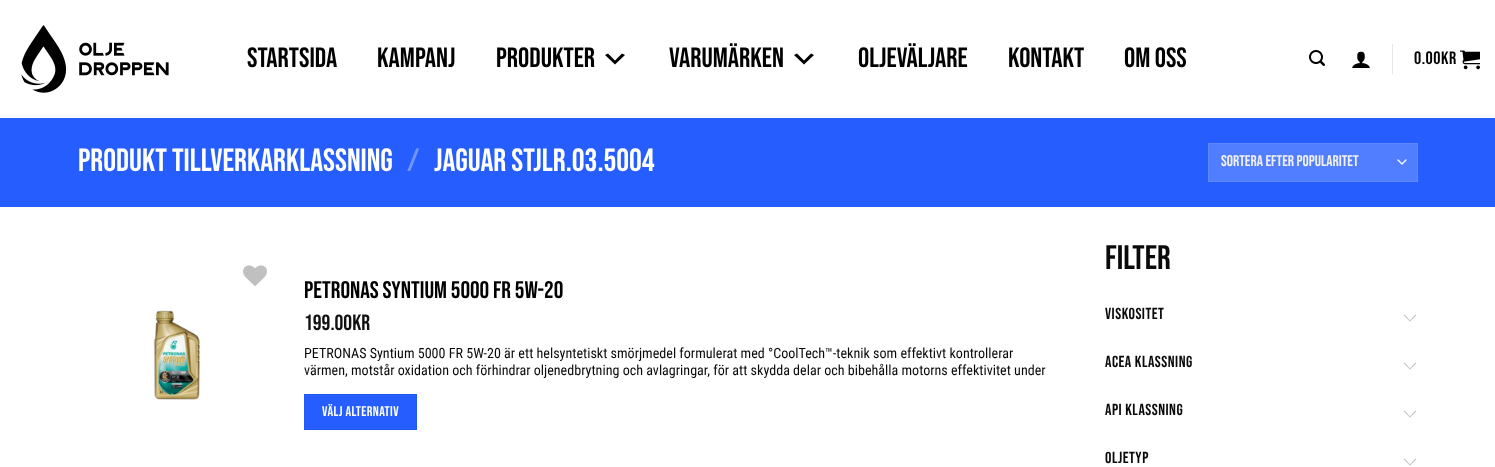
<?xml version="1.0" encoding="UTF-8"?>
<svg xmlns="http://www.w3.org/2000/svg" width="1495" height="467">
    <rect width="100%" height="100%" fill="#FFFFFF"/>
    <image x="21" y="25" width="148" height="68" href="img_01.png"/>
    <text x="247" y="67" font-family="Bebas Neue" font-size="28" fill="#000000">STARTSIDA</text>
    <text x="377" y="67" font-family="Bebas Neue" font-size="28" fill="#000000">KAMPANJ</text>
    <text x="496" y="67" font-family="Bebas Neue" font-size="28" fill="#000000">PRODUKTER</text>
    <path d="M 608 53.5 L 615 60.5 L 622 53.5 L 625 55 L 615 64.5 L 605 55 Z" fill="#000000"/>
    <text x="669" y="67" font-family="Bebas Neue" font-size="28" fill="#000000">VARUMÄRKEN</text>
    <path d="M 797 53.5 L 804 60.5 L 811 53.5 L 814 55 L 804 64.5 L 794 55 Z" fill="#000000"/>
    <text x="858" y="67" font-family="Bebas Neue" font-size="28" fill="#000000">OLJEVÄLJARE</text>
    <text x="1008" y="67" font-family="Bebas Neue" font-size="28" fill="#000000">KONTAKT</text>
    <text x="1124" y="67" font-family="Bebas Neue" font-size="28" fill="#000000">OM OSS</text>
    <image x="1309" y="50" width="16" height="16" href="img_02.png"/>
    <image x="1352" y="51" width="18" height="17" href="img_03.png"/>
    <rect x="1392" y="44" width="1" height="30" fill="#E6E6E6"/>
    <text x="1414" y="64" font-family="Bebas Neue" font-size="18" letter-spacing="0.5" fill="#000000">0.00kr</text>
    <image x="1460" y="50" width="20" height="20" href="img_04.png"/>
    <rect x="0" y="118" width="1495" height="89" fill="#255DFF"/>
    <text x="78" y="171" font-family="Bebas Neue" font-size="32" fill="#FFFFFF">Produkt Tillverkarklassning</text>
    <text x="407" y="171" font-family="Bebas Neue" font-size="32" fill="#7196FF">/</text>
    <text x="434" y="171" font-family="Bebas Neue" font-size="32" fill="#FFFFFF">Jaguar STJLR.03.5004</text>
    <rect x="1209" y="144" width="208" height="37" fill="#517DFF"/>
    <path d="M 1398 160 L 1402 164 L 1406 160" fill="none" stroke="#FFFFFF" stroke-width="1.3" stroke-linecap="round" stroke-linejoin="round"/>
    <rect x="1208.5" y="143.5" width="209" height="38" fill="none" stroke="#6189FF"/>
    <text x="1221" y="166" font-family="Bebas Neue" font-size="15.5" fill="#F1F1F1">Sortera efter popularitet</text>
    <image x="243" y="265" width="24" height="21" href="img_05.png"/>
    <image x="153" y="310" width="48" height="90" href="img_06.png"/>
    <text x="304" y="298" font-family="Bebas Neue" font-size="24" fill="#000000">Petronas Syntium 5000 FR 5W-20</text>
    <text x="304" y="330" font-family="Bebas Neue" font-size="22" fill="#111111">199.00kr</text>
    <text font-family="Roboto Condensed" font-size="14.08" fill="#0A0A0A">
        <tspan x="304" y="358">PETRONAS Syntium 5000 FR 5W-20 är ett helsyntetiskt smörjmedel formulerat med °CoolTech™-teknik som effektivt kontrollerar</tspan>
        <tspan x="304" y="375">värmen, motstår oxidation och förhindrar oljenedbrytning och avlagringar, för att skydda delar och bibehålla motorns effektivitet under</tspan>
    </text>
    <rect x="304.5" y="394.5" width="112" height="35" fill="#255DFF" stroke="#2358F2"/>
    <text x="322" y="416" font-family="Bebas Neue" font-size="14.08" letter-spacing="0.4" fill="#FFFFFF">Välj alternativ</text>
    <text x="1105" y="269" font-family="Bebas Neue" font-size="34" fill="#0A0A0A">Filter</text>
    <text x="1105" y="319" font-family="Bebas Neue" font-size="16" letter-spacing="0.5" fill="#0A0A0A">Viskositet</text>
    <path d="M 1410 321.5 L 1403.5 315 L 1404.5 314.5 L 1410.5 321 Z" fill="#B8BCC8"/>
    <path d="M 1410 321.5 L 1409.5 321 L 1415.5 314.5 L 1416.5 315 Z" fill="#B8BCC8"/>
    <text x="1105" y="367" font-family="Bebas Neue" font-size="16" letter-spacing="0.5" fill="#0A0A0A">ACEA Klassning</text>
    <path d="M 1410 369.5 L 1403.5 363 L 1404.5 362.5 L 1410.5 369 Z" fill="#B8BCC8"/>
    <path d="M 1410 369.5 L 1409.5 369 L 1415.5 362.5 L 1416.5 363 Z" fill="#B8BCC8"/>
    <text x="1105" y="415" font-family="Bebas Neue" font-size="16" letter-spacing="0.5" fill="#0A0A0A">API Klassning</text>
    <path d="M 1410 417.5 L 1403.5 411 L 1404.5 410.5 L 1410.5 417 Z" fill="#B8BCC8"/>
    <path d="M 1410 417.5 L 1409.5 417 L 1415.5 410.5 L 1416.5 411 Z" fill="#B8BCC8"/>
    <text x="1105" y="463" font-family="Bebas Neue" font-size="16" letter-spacing="0.5" fill="#0A0A0A">Oljetyp</text>
    <path d="M 1410 465.5 L 1403.5 459 L 1404.5 458.5 L 1410.5 465 Z" fill="#B8BCC8"/>
    <path d="M 1410 465.5 L 1409.5 465 L 1415.5 458.5 L 1416.5 459 Z" fill="#B8BCC8"/>
</svg>
